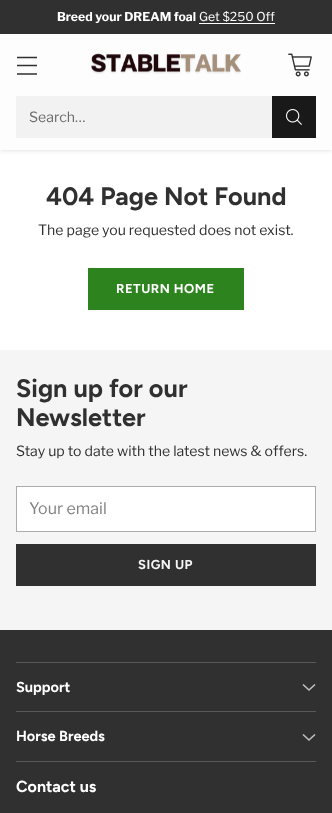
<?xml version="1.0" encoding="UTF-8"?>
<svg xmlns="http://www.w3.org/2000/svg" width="332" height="813">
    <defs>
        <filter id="blur1" x="-50%" y="-200%" width="200%" height="500%"><feGaussianBlur stdDeviation="2.5"/></filter>
    </defs>
    <rect width="100%" height="100%" fill="#FFFFFF"/>
    <rect x="0" y="34" width="332" height="116" fill="#000000" fill-opacity="0.15" filter="url(#blur1)"/>
    <rect x="0" y="0" width="332" height="34" fill="#303030"/>
    <text x="57" y="21" font-family="Libre Franklin" font-size="12.25" font-weight="700" fill="#FFFFFF">Breed your DREAM foal</text>
    <text x="199" y="21" font-family="Libre Franklin" font-size="12.25" fill="#FFFFFF">Get $250 Off</text>
    <rect x="199" y="23" width="76" height="1" fill="#FFFFFF"/>
    <rect x="0" y="34" width="332" height="116" fill="#FDFDFD"/>
    <path d="M 17 65.5 H 37 M 17 57.5 H 37 M 17 74 H 37" fill="none" stroke="#303030" stroke-width="1.4"/>
    <image x="91" y="50" width="150" height="24" href="img_01.png"/>
    <image x="288" y="53" width="24" height="24" href="img_02.png"/>
    <rect x="16.5" y="96.5" width="299" height="41" fill="none" stroke="#F2F2F2"/>
    <rect x="17" y="97" width="255" height="40" fill="#F2F2F2"/>
    <text x="29" y="122" font-family="Libre Franklin" font-size="14.1" fill="#6A6A6A">Search…</text>
    <rect x="272" y="96" width="44" height="42" fill="#191919"/>
    <image x="286" y="109" width="16" height="16" href="img_03.png"/>
    <text x="46" y="205" font-family="Figtree" font-size="25.25" font-weight="700" fill="#303030">404 Page Not Found</text>
    <text x="38" y="235" font-family="Libre Franklin" font-size="14.1" fill="#303030">The page you requested does not exist.</text>
    <rect x="88" y="268" width="156" height="42" fill="#2D831D"/>
    <text x="116" y="293" font-family="Figtree" font-size="13" font-weight="700" letter-spacing="0.5" fill="#FFFFFF">RETURN HOME</text>
    <rect x="0" y="350" width="332" height="280" fill="#F5F5F5"/>
    <text font-family="Figtree" font-size="25.25" font-weight="700" fill="#303030">
        <tspan x="16" y="397">Sign up for our</tspan>
        <tspan x="16" y="426">Newsletter</tspan>
    </text>
    <text x="16" y="456" font-family="Libre Franklin" font-size="14.1" fill="#303030">Stay up to date with the latest news &amp; offers.</text>
    <rect x="16.5" y="486.5" width="299" height="45" fill="#FFFFFF" stroke="#ACACAC"/>
    <text x="29" y="514" font-family="Libre Franklin" font-size="16" fill="#838383">Your email</text>
    <rect x="16" y="544" width="300" height="42" fill="#303030"/>
    <text x="138" y="569" font-family="Figtree" font-size="13" font-weight="700" letter-spacing="0.5" fill="#F5F5F5">SIGN UP</text>
    <rect x="0" y="630" width="332" height="183" fill="#303030"/>
    <rect x="16" y="662" width="300" height="1" fill="#595959"/>
    <rect x="16" y="711" width="300" height="1" fill="#595959"/>
    <text x="16" y="692" font-family="Figtree" font-size="14.5" font-weight="700" fill="#FFFFFF">Support</text>
    <path d="M 303 684.5 L 309 690 L 315 684.5 M 303 734.5 L 309 740 L 315 734.5" fill="none" stroke="#C1C1C1" stroke-width="1.6"/>
    <rect x="16" y="761" width="300" height="1" fill="#595959"/>
    <text x="16" y="741" font-family="Figtree" font-size="14.5" font-weight="700" fill="#FFFFFF">Horse Breeds</text>
    <text x="16" y="792" font-family="Figtree" font-size="16" font-weight="700" fill="#FFFFFF">Contact us</text>
</svg>
